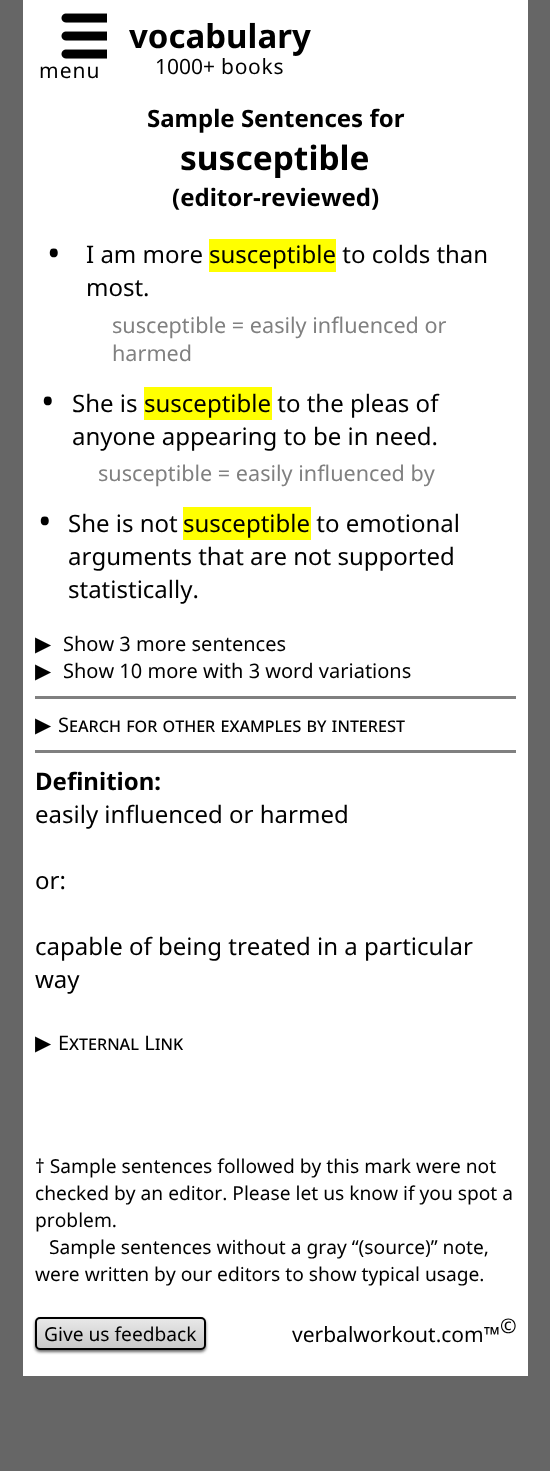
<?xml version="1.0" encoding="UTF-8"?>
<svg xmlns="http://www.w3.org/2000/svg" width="550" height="1471">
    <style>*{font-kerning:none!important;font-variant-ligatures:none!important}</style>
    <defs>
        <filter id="blur1" x="-50%" y="-200%" width="200%" height="500%"><feGaussianBlur stdDeviation="1.5"/></filter>
        <clipPath id="clip1"><rect x="35" y="1317" width="171" height="33" rx="5"/></clipPath>
        <linearGradient id="g1" gradientUnits="userSpaceOnUse" x1="120" y1="1319" x2="120" y2="1349"><stop offset="0" stop-color="#E8E8E8"/><stop offset="1" stop-color="#C8C8C8"/></linearGradient>
    </defs>
    <rect width="100%" height="100%" fill="#666666"/>
    <rect x="23" y="0" width="505" height="1376" fill="#FFFFFF"/>
    <image x="61" y="13" width="46" height="46" href="img_01.png"/>
    <text x="39" y="78" font-family="Noto Sans" font-size="21" letter-spacing="1" fill="#000000">menu</text>
    <text x="129" y="48" font-family="Noto Sans" font-size="33" font-weight="700" fill="#000000">vocabulary</text>
    <text x="155" y="74" font-family="Noto Sans" font-size="21" fill="#000000">1000+</text>
    <text x="221" y="74" font-family="Noto Sans" font-size="21" letter-spacing="0.75" fill="#000000">books</text>
    <text x="147" y="127" font-family="Noto Sans" font-size="24" font-weight="700" fill="#000000">Sample Sentences for</text>
    <text x="180" y="170" font-family="Noto Sans" font-size="33.5" font-weight="700" fill="#000000">susceptible</text>
    <text x="172" y="206" font-family="Noto Sans" font-size="24" font-weight="700" fill="#000000">(editor-reviewed)</text>
    <text x="47" y="266" font-family="Noto Sans" font-size="36" fill="#000000">•</text>
    <text x="86" y="263" font-family="Noto Sans" font-size="24" fill="#000000">I am more</text>
    <rect x="209" y="239" width="127" height="33" fill="#FFFF00"/>
    <text x="209" y="263" font-family="Noto Sans" font-size="24" fill="#000000">susceptible to colds than</text>
    <text x="86" y="296" font-family="Noto Sans" font-size="24" fill="#000000">most.</text>
    <text font-family="Noto Sans" font-size="21.6" fill="#808080">
        <tspan x="112" y="333">susceptible = easily influenced or</tspan>
        <tspan x="112" y="361">harmed</tspan>
    </text>
    <text x="41" y="414" font-family="Noto Sans" font-size="36" fill="#000000">•</text>
    <text x="72" y="412" font-family="Noto Sans" font-size="24" fill="#000000">She is</text>
    <rect x="144" y="387" width="128" height="33" fill="#FFFF00"/>
    <text x="144" y="412" font-family="Noto Sans" font-size="24" fill="#000000">susceptible to the pleas of</text>
    <text x="72" y="445" font-family="Noto Sans" font-size="24" fill="#000000">anyone appearing to be in need.</text>
    <text x="98" y="481" font-family="Noto Sans" font-size="21.6" fill="#808080">susceptible = easily influenced by</text>
    <text x="38" y="534" font-family="Noto Sans" font-size="36" fill="#000000">•</text>
    <text x="68" y="532" font-family="Noto Sans" font-size="24" fill="#000000">She is not</text>
    <rect x="183" y="507" width="128" height="33" fill="#FFFF00"/>
    <text x="183" y="532" font-family="Noto Sans" font-size="24" fill="#000000">susceptible to emotional</text>
    <text font-family="Noto Sans" font-size="24" fill="#000000">
        <tspan x="68" y="565">arguments that are not supported</tspan>
        <tspan x="68" y="598">statistically.</tspan>
    </text>
    <text x="35" y="651" font-family="DejaVu Sans" font-size="21" fill="#000000">▶︎</text>
    <text x="63" y="651" font-family="Noto Sans" font-size="20" fill="#000000">Show 3 more sentences</text>
    <text x="35" y="678" font-family="DejaVu Sans" font-size="21" fill="#000000">▶︎</text>
    <text x="63" y="678" font-family="Noto Sans" font-size="20" fill="#000000">Show 10 more with 3 word variations</text>
    <rect x="35" y="696" width="481" height="3" fill="#808080"/>
    <text x="35" y="732" font-family="DejaVu Sans" font-size="21" fill="#000000">▶︎</text>
    <text x="58" y="732" font-family="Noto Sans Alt" font-size="20" fill="#000000">Search for other examples by interest</text>
    <rect x="35" y="750" width="481" height="3" fill="#808080"/>
    <text x="35" y="790" font-family="Noto Sans" font-size="24" font-weight="700" fill="#000000">Definition:</text>
    <text x="35" y="823" font-family="Noto Sans" font-size="24" fill="#000000">easily influenced or harmed</text>
    <text x="35" y="889" font-family="Noto Sans" font-size="24" fill="#000000">or:</text>
    <text font-family="Noto Sans" font-size="24" fill="#000000">
        <tspan x="35" y="955">capable of being treated in a particular</tspan>
        <tspan x="35" y="988">way</tspan>
    </text>
    <text x="35" y="1050" font-family="DejaVu Sans" font-size="21" fill="#000000">▶︎</text>
    <text x="58" y="1050" font-family="Noto Sans Alt" font-size="20" fill="#000000">External Link</text>
    <text font-family="Noto Sans" font-size="19.2" fill="#000000">
        <tspan x="35" y="1173">† Sample sentences followed by this mark were not</tspan>
        <tspan x="35" y="1200">checked by an editor. Please let us know if you spot a</tspan>
        <tspan x="35" y="1227">problem.</tspan>
    </text>
    <text x="49" y="1254" font-family="Noto Sans" font-size="19.2" fill="#000000">Sample sentences without a gray “(source)” note,</text>
    <text x="35" y="1281" font-family="Noto Sans" font-size="19.2" fill="#000000">were written by our editors to show typical usage.</text>
    <rect x="35" y="1319" width="171" height="33" rx="5" fill="#666666" filter="url(#blur1)"/>
    <g clip-path="url(#clip1)">
        <rect x="35" y="1319" width="171" height="30" fill="url(#g1)"/>
    </g>
    <rect x="36" y="1318" width="169" height="31" rx="4" fill="none" stroke="#000000" stroke-width="2"/>
    <text x="44" y="1341" font-family="Noto Sans" font-size="19.2" fill="#000000">Give us feedback</text>
    <text x="292" y="1342" font-family="Noto Sans" font-size="21" fill="#000000">verbalworkout.com™</text>
    <text x="500" y="1333" font-family="Noto Sans" font-size="20" fill="#000000">©</text>
</svg>
